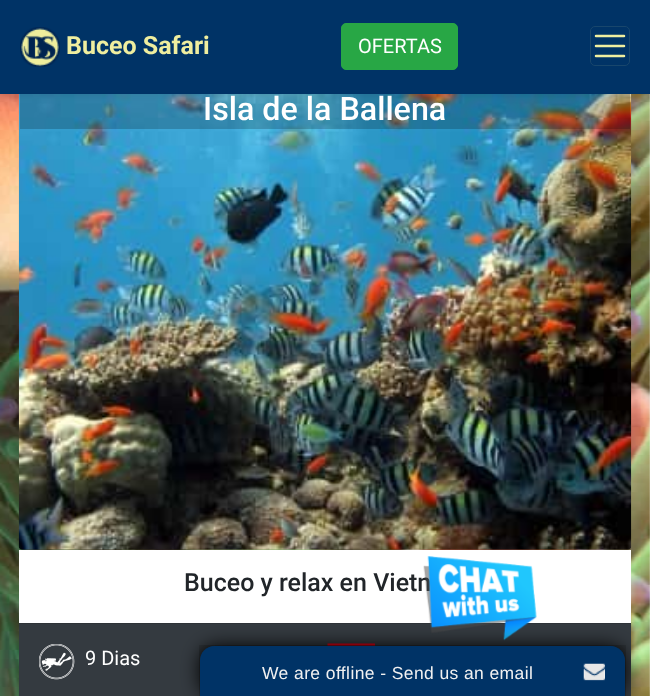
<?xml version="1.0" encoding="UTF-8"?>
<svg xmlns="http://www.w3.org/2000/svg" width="650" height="696">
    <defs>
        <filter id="blur1" x="-50%" y="-200%" width="200%" height="500%"><feGaussianBlur stdDeviation="2.5"/></filter>
        <filter id="blur2" x="-50%" y="-200%" width="200%" height="500%"><feGaussianBlur stdDeviation="9.5"/></filter>
    </defs>
    <rect width="100%" height="100%" fill="#FFFFFF"/>
    <image x="0" y="94" width="650" height="602" href="img_02.png"/>
    <image x="18" y="94" width="614" height="456" href="img_03.png"/>
    <rect x="20" y="94" width="610" height="35" fill="#000000" fill-opacity="0.2"/>
    <rect x="0" y="3" width="650" height="93" fill="#000000" fill-opacity="0.07" filter="url(#blur1)"/>
    <rect x="0" y="0" width="650" height="94" fill="#003366"/>
    <image x="20" y="27" width="40" height="40" href="img_01.png"/>
    <text x="66" y="54" font-family="Roboto" font-size="25" font-weight="700" fill="#EFEE9F">Buceo Safari</text>
    <rect x="341.5" y="23.5" width="116" height="46" rx="4.5" fill="#28A745" stroke="#28A745"/>
    <text x="358" y="53" font-family="Roboto" font-size="20" fill="#FFFFFF">OFERTAS</text>
    <rect x="590.5" y="26.5" width="39" height="39" rx="4.5" fill="none" stroke="#18466C"/>
    <path d="M 596 36 H 624 M 596 46 H 624 M 596 56 H 624" fill="none" stroke="#EFEE9F" stroke-width="2.5" stroke-linecap="round"/>
    <text x="203" y="120" font-family="Roboto" font-size="32.25" font-weight="500" fill="#FFFFFF">Isla de la Ballena</text>
    <rect x="19" y="550" width="612" height="73" fill="#FFFFFF"/>
    <text x="184" y="591" font-family="Roboto" font-size="25" font-weight="500" fill="#212529">Buceo y relax en Vietn</text>
    <rect x="19" y="624" width="612" height="72" fill="#343A40"/>
    <rect x="19" y="623" width="612" height="1" fill="#2E3338"/>
    <image x="39" y="644" width="36" height="36" href="img_04.png"/>
    <text x="85" y="665" font-family="Roboto" font-size="20" fill="#FFFFFF">9 Dias</text>
    <image x="327" y="643" width="48" height="3" href="img_05.png"/>
    <image x="423" y="556" width="114" height="85" href="img_06.png"/>
    <rect x="200" y="646" width="425" height="50" rx="16" fill="#111111" filter="url(#blur2)"/>
    <image x="199" y="645" width="427" height="51" href="img_07.png"/>
    <path d="M 214 646 H 611 C 618.5 646 625 652.5 625 660 V 696 H 200 V 660 C 200 652.5 206.5 646 214 646 Z" fill="#003366"/>
    <text x="262" y="679" font-family="Liberation Sans" font-size="17.5" letter-spacing="0.4" fill="#F1F1F1">We are offline - Send us an email</text>
    <image x="583" y="663" width="22" height="18" href="img_08.png"/>
</svg>
